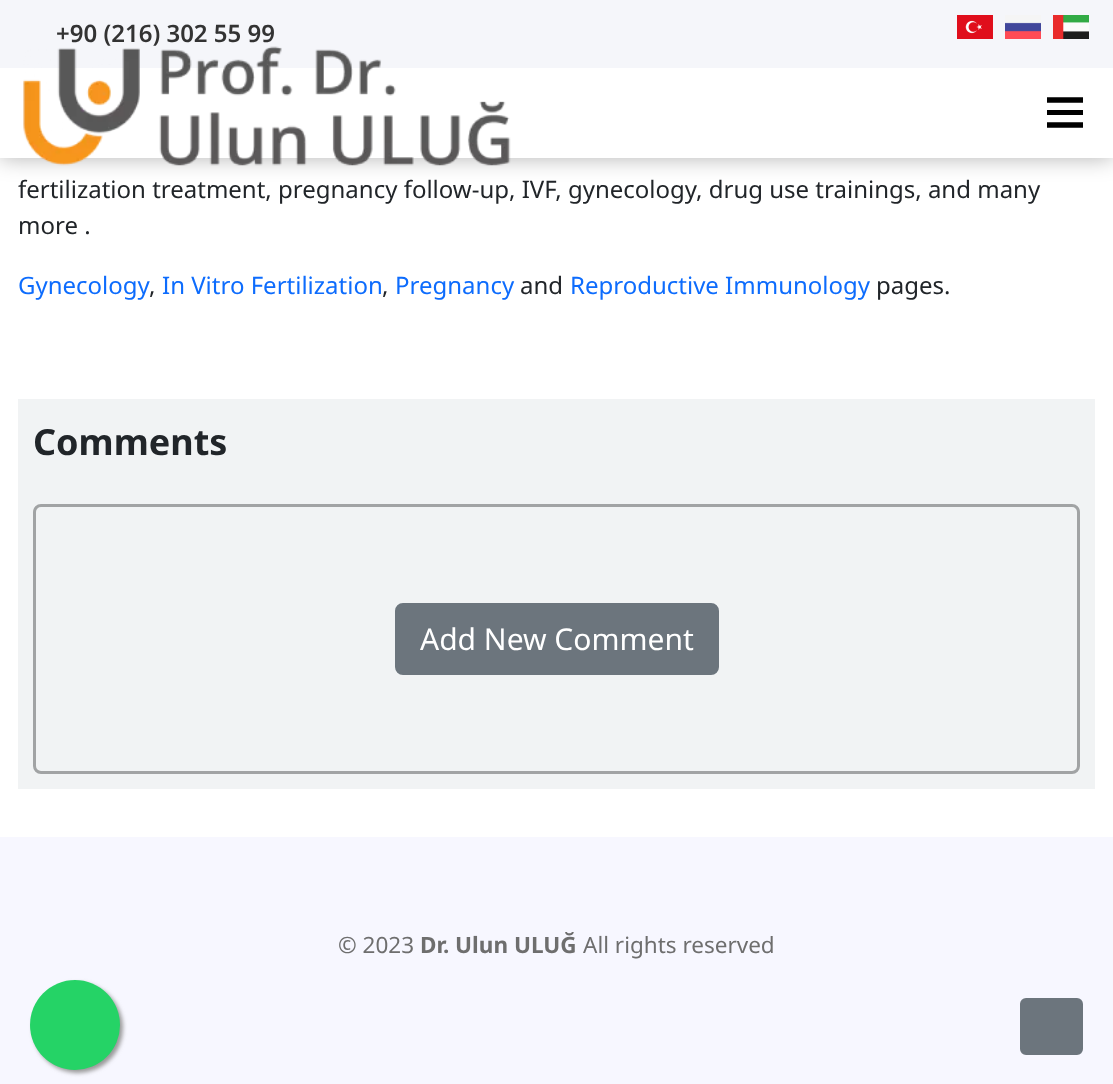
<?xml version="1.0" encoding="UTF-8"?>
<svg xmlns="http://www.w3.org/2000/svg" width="1113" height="1084">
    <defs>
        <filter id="blur1" x="-50%" y="-200%" width="200%" height="500%"><feGaussianBlur stdDeviation="11"/></filter>
        <filter id="blur2" x="-50%" y="-200%" width="200%" height="500%"><feGaussianBlur stdDeviation="2"/></filter>
    </defs>
    <rect width="100%" height="100%" fill="#FFFFFF"/>
    <rect x="0" y="0" width="1113" height="158" fill="#000000" fill-opacity="0.3" filter="url(#blur1)"/>
    <rect x="0" y="68" width="1113" height="90" fill="#FFFFFF"/>
    <rect x="0" y="0" width="1113" height="68" fill="#F5F6FA"/>
    <text x="56" y="42" font-family="Noto Sans" font-size="24" font-weight="600" fill="#333333">+90 (216) 302 55 99</text>
    <image x="957" y="15" width="36" height="24" href="img_01.png"/>
    <image x="1005" y="15" width="36" height="24" href="img_02.png"/>
    <image x="1053" y="15" width="36" height="24" href="img_03.png"/>
    <image x="23" y="46" width="488" height="120" href="img_04.png"/>
    <path d="M 1047 100 H 1083" fill="none" stroke="#000000" stroke-width="5.4"/>
    <rect x="1047" y="110" width="36" height="5" fill="#000000"/>
    <path d="M 1047 125 H 1083" fill="none" stroke="#000000" stroke-width="5.4"/>
    <text font-family="Noto Sans" font-size="24" fill="#212529">
        <tspan x="18" y="198">fertilization treatment, pregnancy follow-up, IVF, gynecology, drug use trainings, and many</tspan>
        <tspan x="18" y="234">more .</tspan>
    </text>
    <text x="18" y="294" font-family="Noto Sans" font-size="24" fill="#0D6CFD">Gynecology</text>
    <text x="149" y="294" font-family="Noto Sans" font-size="24" fill="#212529">,</text>
    <text x="162" y="294" font-family="Noto Sans" font-size="24" fill="#0D6CFD">In Vitro Fertilization</text>
    <text x="382" y="294" font-family="Noto Sans" font-size="24" fill="#212529">,</text>
    <text x="395" y="294" font-family="Noto Sans" font-size="24" fill="#0D6CFD">Pregnancy</text>
    <text x="520" y="294" font-family="Noto Sans" font-size="24" fill="#212529">and</text>
    <text x="570" y="294" font-family="Noto Sans" font-size="24" fill="#0D6CFD">Reproductive Immunology</text>
    <text x="876" y="294" font-family="Noto Sans" font-size="24" fill="#212529">pages.</text>
    <rect x="18" y="399" width="1077" height="390" fill="#F1F3F4"/>
    <text x="33" y="455" font-family="Noto Sans" font-size="36" font-weight="700" fill="#212529">Comments</text>
    <rect x="34.5" y="505.5" width="1044" height="267" rx="6.5" fill="none" stroke="#A1A3A4" stroke-width="3"/>
    <rect x="396" y="604" width="322" height="70" rx="7" fill="#6C757D" stroke="#6C757D" stroke-width="2"/>
    <text x="420" y="650" font-family="Noto Sans" font-size="30" fill="#FFFFFF">Add New Comment</text>
    <rect x="0" y="837" width="1113" height="247" fill="#F7F7FF"/>
    <text x="338" y="953" font-family="Noto Sans" font-size="22.5" fill="#6E6E6E">© 2023</text>
    <text x="420" y="953" font-family="Noto Sans" font-size="22.5" font-weight="700" fill="#6E6E6E">Dr. Ulun ULUĞ</text>
    <text x="583" y="953" font-family="Noto Sans" font-size="22.5" fill="#6E6E6E">All rights reserved</text>
    <rect x="33" y="983" width="90" height="90" rx="45" fill="#999999" filter="url(#blur2)"/>
    <circle cx="75" cy="1025" r="45" fill="#25D366"/>
    <rect x="1021" y="999" width="61" height="55" rx="5" fill="#6C757D" stroke="#6C757D" stroke-width="2"/>
</svg>
